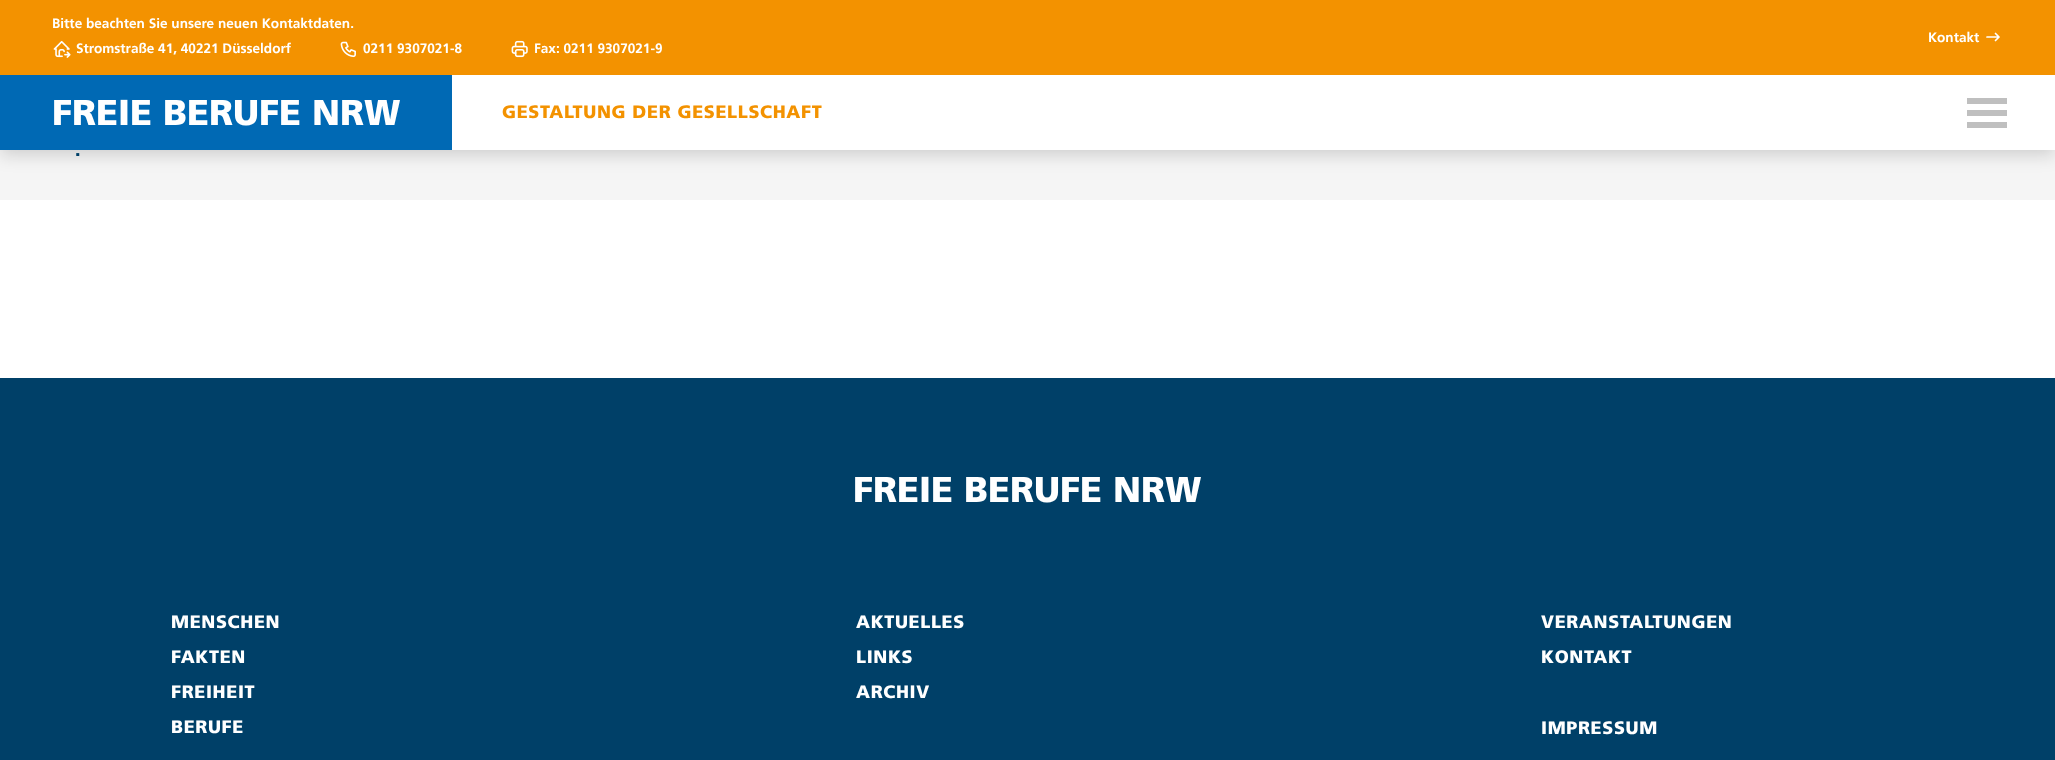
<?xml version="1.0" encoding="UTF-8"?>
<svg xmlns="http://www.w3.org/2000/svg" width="2055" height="760">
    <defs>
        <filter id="blur1" x="-50%" y="-200%" width="200%" height="500%"><feGaussianBlur stdDeviation="8.5"/></filter>
    </defs>
    <rect width="100%" height="100%" fill="#FFFFFF"/>
    <rect x="0" y="150" width="2055" height="50" fill="#F5F5F5"/>
    <rect x="0" y="5" width="2055" height="150" fill="#000000" fill-opacity="0.16" filter="url(#blur1)"/>
    <rect x="0" y="75" width="452" height="75" fill="#0069B4"/>
    <rect x="0" y="0" width="2055" height="75" fill="#F39200"/>
    <text x="52" y="28" font-family="Frutiger" font-size="13.6" font-weight="700" fill="#FFFFFF">Bitte beachten Sie unsere neuen Kontaktdaten.</text>
    <image x="53" y="40" width="18" height="18" href="img_01.png"/>
    <text x="76" y="53" font-family="Frutiger" font-size="13.6" font-weight="700" fill="#FFFFFF">Stromstraße 41, 40221 Düsseldorf</text>
    <image x="340" y="41" width="16" height="17" href="img_02.png"/>
    <text x="363" y="53" font-family="Frutiger" font-size="13.6" font-weight="700" fill="#FFFFFF">0211 9307021-8</text>
    <image x="511" y="40" width="17" height="18" href="img_03.png"/>
    <text x="534" y="53" font-family="Frutiger" font-size="13.6" font-weight="700" fill="#FFFFFF">Fax: 0211 9307021-9</text>
    <text x="1928" y="42" font-family="Frutiger" font-size="13.6" font-weight="700" fill="#FFFFFF">Kontakt</text>
    <path d="M 1987 37 H 1999 M 1999 37 L 1995.5 40.5 M 1999 37 L 1995.5 33.5" fill="none" stroke="#FFFFFF" stroke-width="1.7" stroke-linecap="round" stroke-linejoin="round"/>
    <text x="52" y="125" font-family="Frutiger" font-size="36" font-weight="900" fill="#FFFFFF">FREIE BERUFE NRW</text>
    <rect x="452" y="75" width="1603" height="75" fill="#FFFFFF"/>
    <text x="502" y="118" font-family="Frutiger" font-size="18" font-weight="900" letter-spacing="0.65" fill="#F39200">GESTALTUNG DER GESELLSCHAFT</text>
    <rect x="1967" y="98" width="40" height="6" fill="#BFBFBF"/>
    <rect x="1967" y="110" width="40" height="6" fill="#BFBFBF"/>
    <rect x="1967" y="122" width="40" height="6" fill="#BFBFBF"/>
    <text x="75" y="156" font-family="Frutiger" font-size="18" font-weight="900" fill="#004068">.</text>
    <rect x="0" y="378" width="2055" height="382" fill="#004068"/>
    <text x="853" y="502" font-family="Frutiger" font-size="36" font-weight="900" fill="#FFFFFF">FREIE BERUFE NRW</text>
    <text font-family="Frutiger" font-size="18" font-weight="900" letter-spacing="0.65" fill="#FFFFFF">
        <tspan x="171" y="628">MENSCHEN</tspan>
        <tspan x="171" y="663">FAKTEN</tspan>
        <tspan x="171" y="698">FREIHEIT</tspan>
        <tspan x="171" y="733">BERUFE</tspan>
    </text>
    <text font-family="Frutiger" font-size="18" font-weight="900" letter-spacing="0.65" fill="#FFFFFF">
        <tspan x="856" y="628">AKTUELLES</tspan>
        <tspan x="856" y="663">LINKS</tspan>
        <tspan x="856" y="698">ARCHIV</tspan>
    </text>
    <text font-family="Frutiger" font-size="18" font-weight="900" letter-spacing="0.65" fill="#FFFFFF">
        <tspan x="1541" y="628">VERANSTALTUNGEN</tspan>
        <tspan x="1541" y="663">KONTAKT</tspan>
    </text>
    <text x="1541" y="734" font-family="Frutiger" font-size="18" font-weight="900" letter-spacing="0.65" fill="#FFFFFF">IMPRESSUM</text>
</svg>
